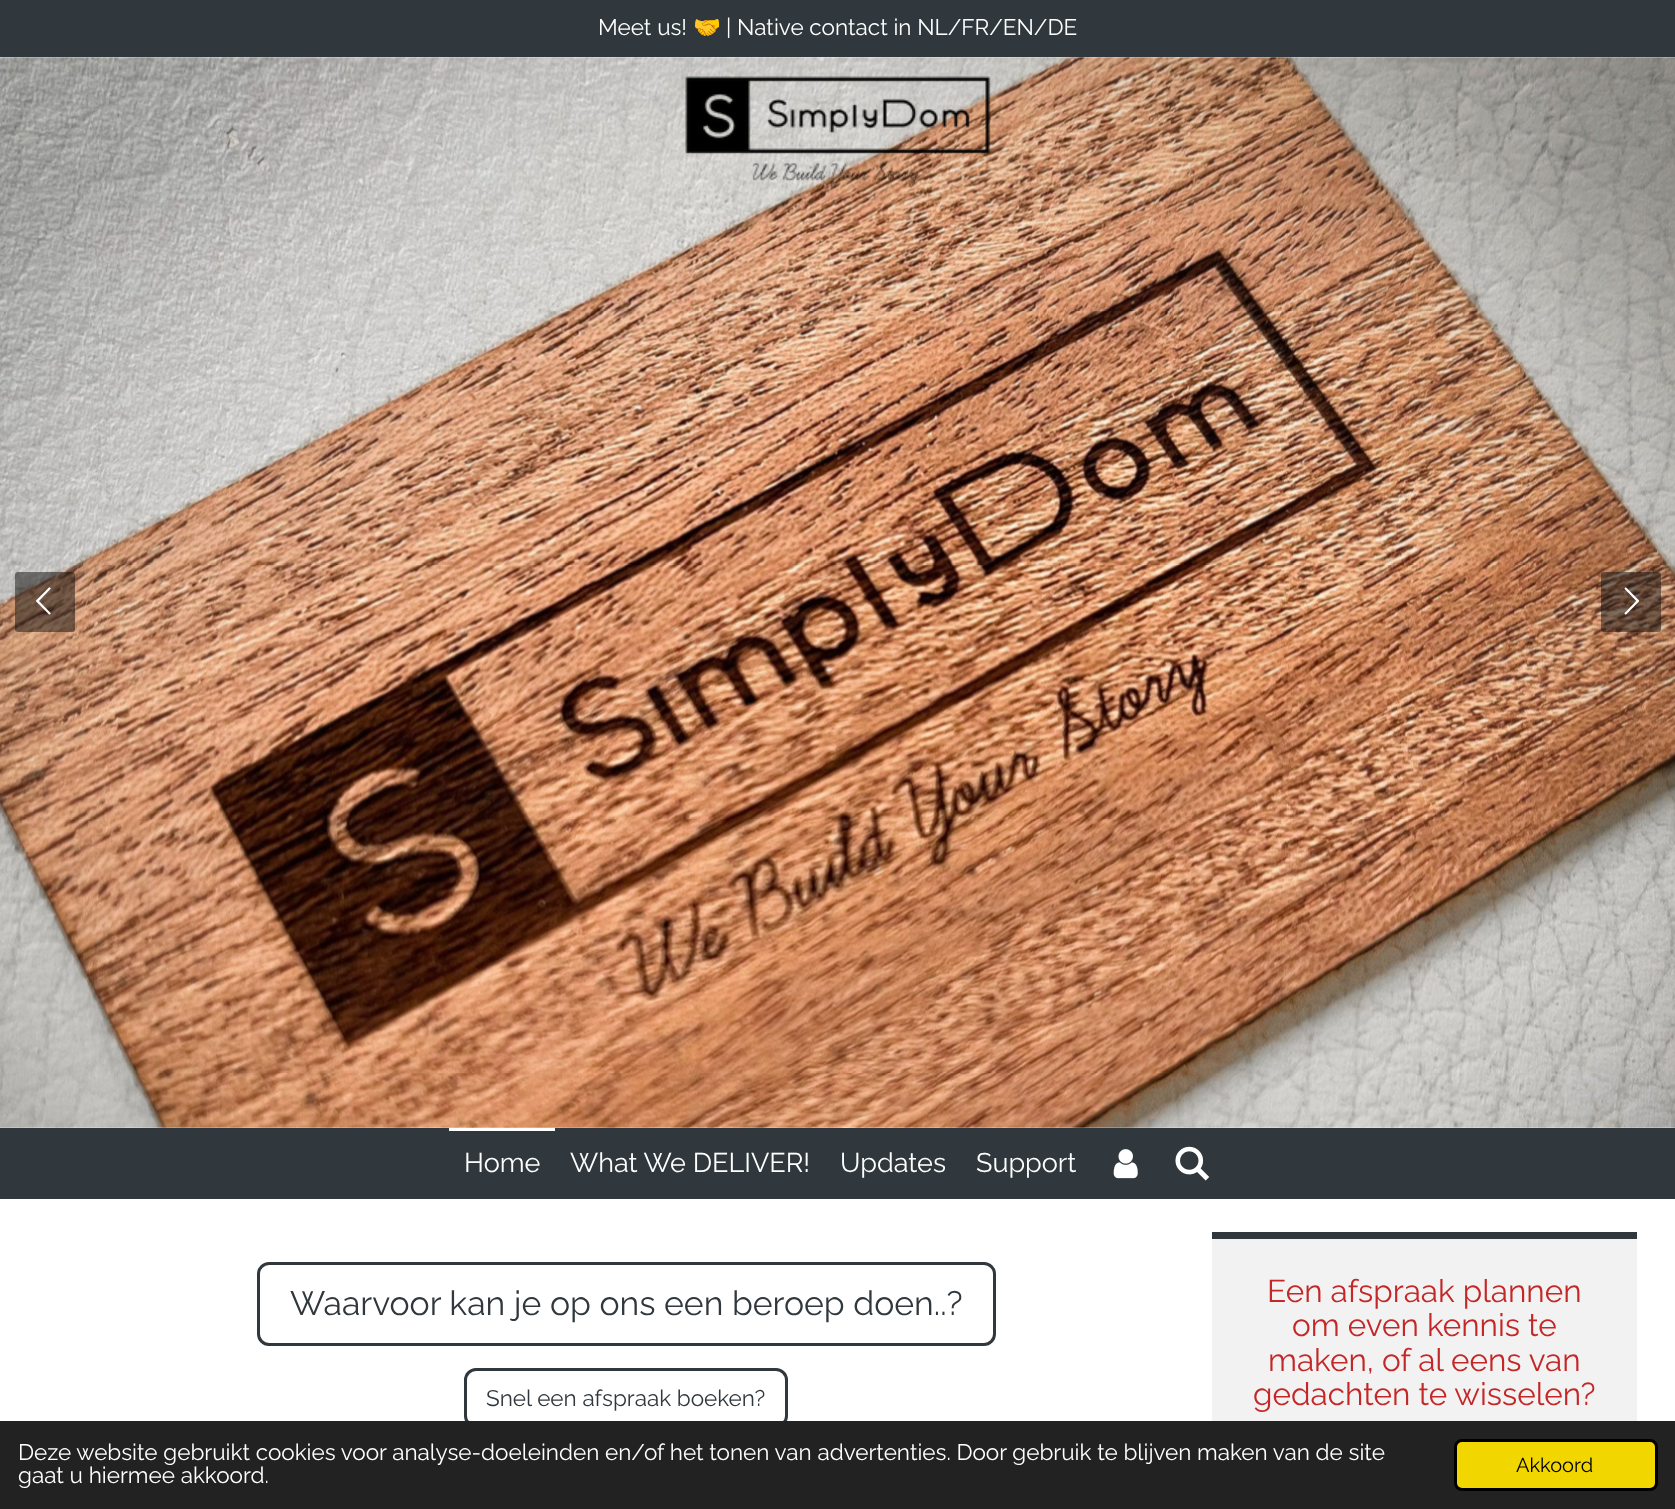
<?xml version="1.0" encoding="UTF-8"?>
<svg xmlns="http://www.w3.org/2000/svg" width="1675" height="1509">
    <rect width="100%" height="100%" fill="#FFFFFF"/>
    <rect x="0" y="0" width="1675" height="57" fill="#30383D"/>
    <text x="598" y="35" font-family="Raleway" font-size="22.5" fill="#FFFFFF">Meet us!</text>
    <text x="693" y="35" font-family="Noto Color Emoji" font-size="22.5" fill="#FFFFFF">🤝</text>
    <text x="726" y="35" font-family="Raleway" font-size="22.5" fill="#FFFFFF">| Native contact in NL/FR/EN/DE</text>
    <image x="0" y="57" width="1675" height="1071" href="img_01.png"/>
    <rect x="15" y="572" width="60" height="60" rx="3" fill="#0F0F0F" fill-opacity="0.5"/>
    <image x="36" y="587" width="15" height="28" href="img_02.png"/>
    <rect x="1601" y="572" width="60" height="60" rx="3" fill="#0F0F0F" fill-opacity="0.5"/>
    <image x="1624" y="587" width="16" height="28" href="img_03.png"/>
    <image x="685" y="76" width="306" height="112" href="img_04.png"/>
    <rect x="0" y="1128" width="1675" height="71" fill="#30383D"/>
    <rect x="449" y="1128" width="106" height="3" fill="#FFFFFF"/>
    <text x="464" y="1172" font-family="Raleway" font-size="27" fill="#FFFFFF">Home</text>
    <text x="570" y="1172" font-family="Raleway" font-size="27" fill="#FFFFFF">What We DELIVER!</text>
    <text x="840" y="1172" font-family="Raleway" font-size="27" fill="#FFFFFF">Updates</text>
    <text x="976" y="1172" font-family="Raleway" font-size="27" fill="#FFFFFF">Support</text>
    <image x="1113" y="1149" width="25" height="30" href="img_05.png"/>
    <image x="1175" y="1146" width="35" height="35" href="img_06.png"/>
    <rect x="258.5" y="1263.5" width="736" height="81" rx="10.5" fill="none" stroke="#30383D" stroke-width="3"/>
    <text x="290" y="1315" font-family="Raleway" font-size="33.75" fill="#30383D">Waarvoor kan je op ons een beroep doen..?</text>
    <rect x="465.5" y="1369.5" width="321" height="57" rx="10.5" fill="none" stroke="#30383D" stroke-width="3"/>
    <text x="486" y="1406" font-family="Raleway" font-size="22.5" fill="#30383D">Snel een afspraak boeken?</text>
    <rect x="1212" y="1239" width="425" height="182" fill="#F2F2F2"/>
    <rect x="1212" y="1232" width="425" height="7" fill="#30383D"/>
    <text x="1267" y="1302" font-family="Raleway" font-size="31.5" fill="#C42727">Een afspraak plannen</text>
    <text x="1292" y="1336" font-family="Raleway" font-size="31.5" fill="#C42727">om even kennis te</text>
    <text x="1268" y="1371" font-family="Raleway" font-size="31.5" fill="#C42727">maken, of al eens van</text>
    <text x="1253" y="1405" font-family="Raleway" font-size="31.5" fill="#C42727">gedachten te wisselen?</text>
    <rect x="0" y="1421" width="1675" height="88" fill="#222222"/>
    <text font-family="Raleway" font-size="22.5" fill="#FFFFFF">
        <tspan x="18" y="1460">Deze website gebruikt cookies voor analyse-doeleinden en/of het tonen van advertenties. Door gebruik te blijven maken van de site</tspan>
        <tspan x="18" y="1483">gaat u hiermee akkoord.</tspan>
    </text>
    <rect x="1455.5" y="1440.5" width="201" height="49" rx="6.5" fill="#F1D600" stroke="#000000" stroke-width="3"/>
    <text x="1516" y="1472" font-family="Raleway" font-size="20" fill="#000000">Akkoord</text>
</svg>
